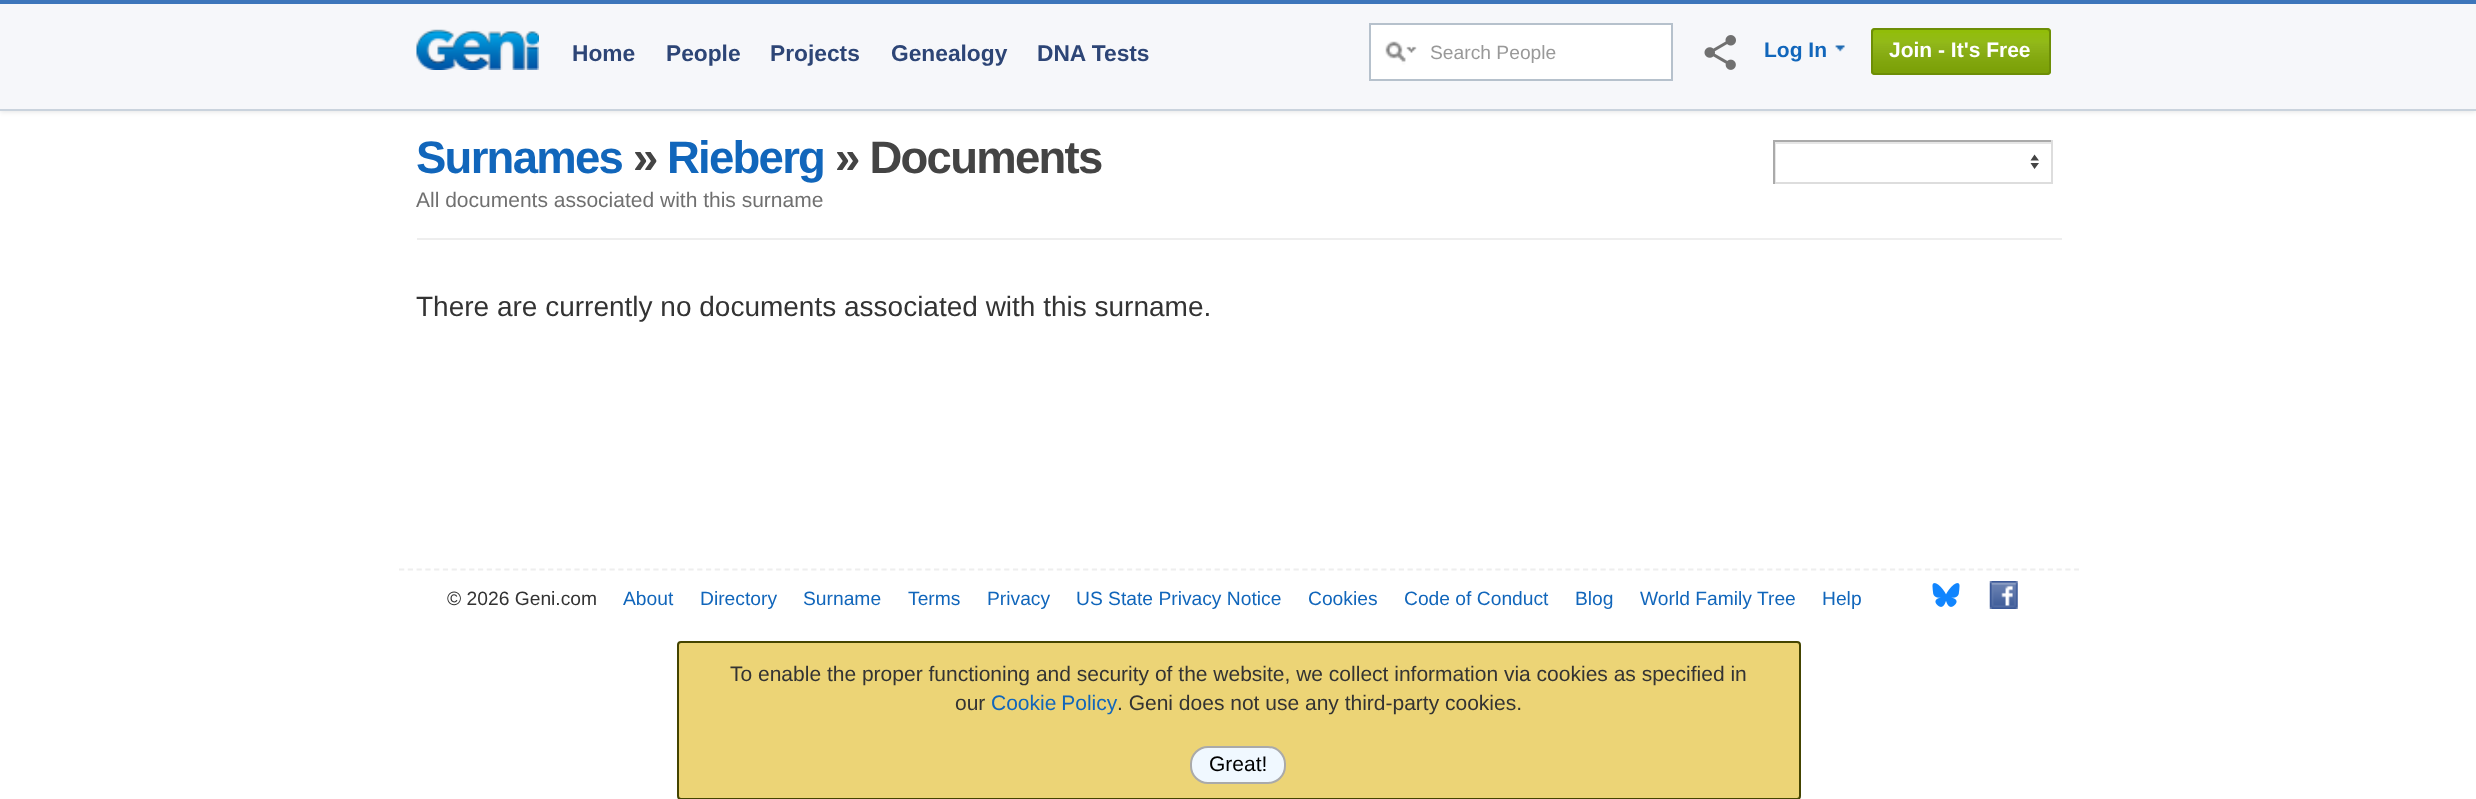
<?xml version="1.0" encoding="UTF-8"?>
<svg xmlns="http://www.w3.org/2000/svg" width="2476" height="799">
    <defs>
        <filter id="blur1" x="-50%" y="-200%" width="200%" height="500%"><feGaussianBlur stdDeviation="2.5"/></filter>
        <clipPath id="clip1"><rect x="1775" y="142" width="276" height="40"/></clipPath>
    </defs>
    <rect width="100%" height="100%" fill="#FFFFFF"/>
    <rect x="0" y="2" width="2476" height="110" fill="#000000" fill-opacity="0.1" filter="url(#blur1)"/>
    <rect x="0" y="4" width="2476" height="105" fill="#F6F7FA"/>
    <rect x="0" y="0" width="2476" height="4" fill="#3D76BB"/>
    <rect x="0" y="109" width="2476" height="2" fill="#CAD3DD"/>
    <image x="416" y="29" width="123" height="41" href="img_01.png"/>
    <text x="572" y="61" font-family="Liberation Sans" font-size="22.75" font-weight="700" fill="#2D4576">Home</text>
    <text x="666" y="61" font-family="Liberation Sans" font-size="22.75" font-weight="700" fill="#2D4576">People</text>
    <text x="770" y="61" font-family="Liberation Sans" font-size="22.75" font-weight="700" fill="#2D4576">Projects</text>
    <text x="891" y="61" font-family="Liberation Sans" font-size="22.75" font-weight="700" fill="#2D4576">Genealogy</text>
    <text x="1037" y="61" font-family="Liberation Sans" font-size="22.75" font-weight="700" fill="#2D4576">DNA Tests</text>
    <rect x="1370" y="24" width="302" height="56" fill="#FFFFFF" stroke="#B6C1CC" stroke-width="2"/>
    <image x="1385" y="41" width="32" height="24" href="img_02.png"/>
    <text x="1430" y="59" font-family="Liberation Sans" font-size="19.25" fill="#999999">Search People</text>
    <image x="1704" y="35" width="32" height="35" href="img_03.png"/>
    <text x="1764" y="57" font-family="Liberation Sans" font-size="21" font-weight="700" fill="#1166BB">Log In</text>
    <image x="1835" y="45" width="10" height="7" href="img_04.png"/>
    <rect x="1871" y="28" width="180" height="47" rx="4" fill="#91BD09"/>
    <image x="1871" y="33" width="180" height="41" href="img_05.png"/>
    <rect x="1872" y="29" width="178" height="45" rx="3" fill="none" stroke="#6D8E06" stroke-width="2"/>
    <text x="1889" y="57" font-family="Liberation Sans" font-size="21" font-weight="700" fill="#FFFFFF">Join - It's Free</text>
    <rect x="417" y="238" width="1645" height="2" fill="#EEEEEE"/>
    <text x="416" y="173" font-family="Liberation Sans" font-size="45.5" font-weight="700" letter-spacing="-1.75" fill="#1166BB">Surnames</text>
    <text x="633" y="173" font-family="Liberation Sans" font-size="45.5" font-weight="700" letter-spacing="-1.75" fill="#444444">»</text>
    <text x="667" y="173" font-family="Liberation Sans" font-size="45.5" font-weight="700" letter-spacing="-1.75" fill="#1166BB">Rieberg</text>
    <text x="835" y="173" font-family="Liberation Sans" font-size="45.5" font-weight="700" letter-spacing="-1.75" fill="#444444">» Documents</text>
    <text x="416" y="207" font-family="Liberation Sans" font-size="21" fill="#707070">All documents associated with this surname</text>
    <path d="M 2030.5 160.5 L 2034.5 154.5 L 2039 160.5 Z M 2039 163 L 2034.5 169 L 2030.5 163 Z" fill="#444444"/>
    <g clip-path="url(#clip1)">
        <path d="M 1601 -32 H 2224 V 355 H 1601 Z M 1776 144 H 2053 V 184 H 1776 Z" fill="#E6E6E6" fill-rule="evenodd"/>
    </g>
    <rect x="1773" y="140" width="280" height="2" fill="#AAAAAA"/>
    <rect x="2051" y="140" width="2" height="44" fill="#DDDDDD"/>
    <rect x="1773" y="182" width="280" height="2" fill="#DDDDDD"/>
    <rect x="1773" y="140" width="2" height="44" fill="#AAAAAA"/>
    <text x="416" y="316" font-family="Liberation Sans" font-size="28" fill="#333333">There are currently no documents associated with this surname.</text>
    <path d="M 399 569.5 H 2079" fill="none" stroke="#EEEEEE" stroke-width="1.8" stroke-dasharray="5.25 3.52"/>
    <text x="447" y="605" font-family="Liberation Sans" font-size="19.25" fill="#333333">© 2026 Geni.com</text>
    <text x="623" y="605" font-family="Liberation Sans" font-size="19.25" fill="#1166BB">About</text>
    <text x="700" y="605" font-family="Liberation Sans" font-size="19.25" fill="#1166BB">Directory</text>
    <text x="803" y="605" font-family="Liberation Sans" font-size="19.25" fill="#1166BB">Surname</text>
    <text x="908" y="605" font-family="Liberation Sans" font-size="19.25" fill="#1166BB">Terms</text>
    <text x="987" y="605" font-family="Liberation Sans" font-size="19.25" fill="#1166BB">Privacy</text>
    <text x="1076" y="605" font-family="Liberation Sans" font-size="19.25" fill="#1166BB">US State Privacy Notice</text>
    <text x="1308" y="605" font-family="Liberation Sans" font-size="19.25" fill="#1166BB">Cookies</text>
    <text x="1404" y="605" font-family="Liberation Sans" font-size="19.25" fill="#1166BB">Code of Conduct</text>
    <text x="1575" y="605" font-family="Liberation Sans" font-size="19.25" fill="#1166BB">Blog</text>
    <text x="1640" y="605" font-family="Liberation Sans" font-size="19.25" fill="#1166BB">World Family Tree</text>
    <text x="1822" y="605" font-family="Liberation Sans" font-size="19.25" fill="#1166BB">Help</text>
    <image x="1932" y="583" width="28" height="24" href="img_06.png"/>
    <image x="1989" y="581" width="29" height="28" href="img_07.png"/>
    <rect x="678" y="642" width="1122" height="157" rx="3" fill="#ECD476" stroke="#444400" stroke-width="2"/>
    <text x="730" y="681" font-family="Liberation Sans" font-size="21" fill="#333333">To enable the proper functioning and security of the website, we collect information via cookies as specified in</text>
    <text x="955" y="710" font-family="Liberation Sans" font-size="21" fill="#333333">our</text>
    <text x="991" y="710" word-spacing="-1" font-family="Liberation Sans" font-size="21" fill="#1166BB">Cookie Policy</text>
    <text x="1117" y="710" font-family="Liberation Sans" font-size="21" fill="#333333">. Geni does not use any third-party cookies.</text>
    <rect x="1191" y="747" width="94" height="36" rx="17" fill="#F0F8FF" stroke="#AAAAAA" stroke-width="2"/>
    <text x="1209" y="771" font-family="Liberation Sans" font-size="21" fill="#000000">Great!</text>
</svg>
